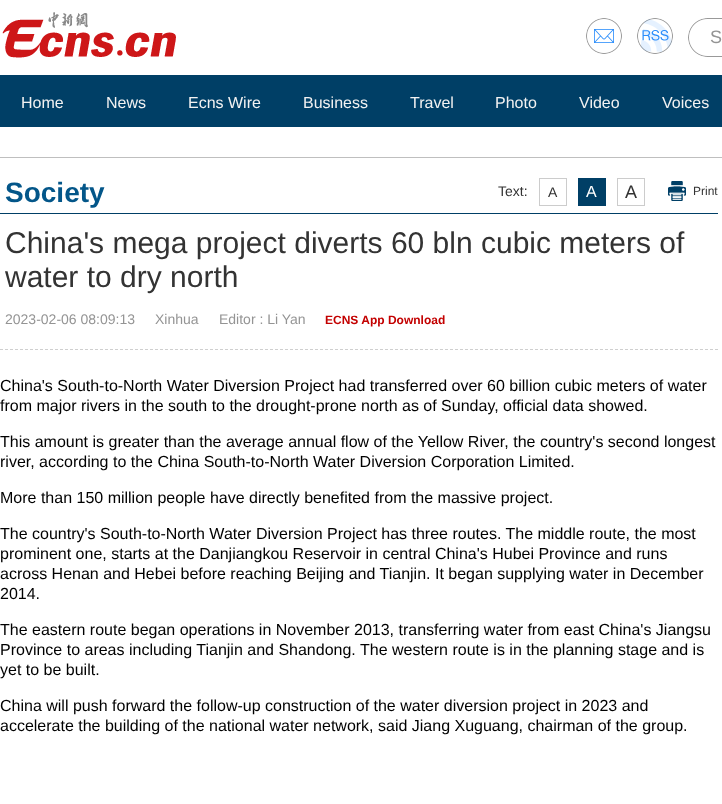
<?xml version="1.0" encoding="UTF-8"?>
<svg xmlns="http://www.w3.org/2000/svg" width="722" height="804">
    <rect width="100%" height="100%" fill="#FFFFFF"/>
    <image x="2" y="12" width="174" height="46" href="img_01.png"/>
    <image x="586" y="18" width="36" height="36" href="img_02.png"/>
    <image x="637" y="18" width="36" height="36" href="img_03.png"/>
    <image x="688" y="18" width="34" height="39" href="img_04.png"/>
    <text x="710" y="43" font-family="Liberation Sans" font-size="18" fill="#949494">S</text>
    <rect x="0" y="75" width="722" height="52" fill="#003F66"/>
    <text x="21" y="108" font-family="Liberation Sans" font-size="16" fill="#F2F2F2">Home</text>
    <text x="106" y="108" font-family="Liberation Sans" font-size="16" fill="#F2F2F2">News</text>
    <text x="188" y="108" font-family="Liberation Sans" font-size="16" fill="#F2F2F2">Ecns Wire</text>
    <text x="303" y="108" font-family="Liberation Sans" font-size="16" fill="#F2F2F2">Business</text>
    <text x="410" y="108" font-family="Liberation Sans" font-size="16" fill="#F2F2F2">Travel</text>
    <text x="495" y="108" font-family="Liberation Sans" font-size="16" fill="#F2F2F2">Photo</text>
    <text x="579" y="108" font-family="Liberation Sans" font-size="16" fill="#F2F2F2">Video</text>
    <text x="662" y="108" font-family="Liberation Sans" font-size="16" fill="#F2F2F2">Voices</text>
    <rect x="0" y="157" width="722" height="1" fill="#BFBFBF"/>
    <rect x="0" y="213" width="718" height="1" fill="#003F66"/>
    <text x="5" y="202" font-family="Liberation Sans" font-size="28" font-weight="700" fill="#035689">Society</text>
    <text x="498" y="196" font-family="Liberation Sans" font-size="14" fill="#333333">Text:</text>
    <rect x="539.5" y="178.5" width="27" height="27" fill="none" stroke="#CCCCCC"/>
    <text x="548" y="197" font-family="Liberation Sans" font-size="14" fill="#333333">A</text>
    <rect x="578" y="178" width="28" height="28" fill="#003F66"/>
    <text x="586" y="197" font-family="Liberation Sans" font-size="16" fill="#FFFFFF">A</text>
    <rect x="617.5" y="178.5" width="27" height="27" fill="none" stroke="#CCCCCC"/>
    <text x="625" y="198" font-family="Liberation Sans" font-size="18" fill="#333333">A</text>
    <image x="668" y="181" width="18" height="20" href="img_05.png"/>
    <text x="693" y="195" font-family="Liberation Sans" font-size="12" fill="#333333">Print</text>
    <text font-family="Liberation Sans" font-size="30" fill="#333333">
        <tspan x="5" y="253">China's mega project diverts 60 bln cubic meters of</tspan>
        <tspan x="5" y="287">water to dry north</tspan>
    </text>
    <path d="M 0 349.5 H 718" fill="none" stroke="#CFCFCF" stroke-dasharray="3 2"/>
    <text x="5" y="324" font-family="Liberation Sans" font-size="14" fill="#949494">2023-02-06 08:09:13</text>
    <text x="155" y="324" font-family="Liberation Sans" font-size="14" fill="#949494">Xinhua</text>
    <text x="219" y="324" font-family="Liberation Sans" font-size="14" fill="#949494">Editor : Li Yan</text>
    <text x="325" y="324" font-family="Liberation Sans" font-size="12" font-weight="700" fill="#C30000">ECNS App Download</text>
    <text font-family="Liberation Sans" font-size="16" fill="#000000">
        <tspan x="0" y="391">China's South-to-North Water Diversion Project had transferred over 60 billion cubic meters of water</tspan>
        <tspan x="0" y="411">from major rivers in the south to the drought-prone north as of Sunday, official data showed.</tspan>
    </text>
    <text font-family="Liberation Sans" font-size="16" fill="#000000">
        <tspan x="0" y="447">This amount is greater than the average annual flow of the Yellow River, the country's second longest</tspan>
        <tspan x="0" y="467">river, according to the China South-to-North Water Diversion Corporation Limited.</tspan>
    </text>
    <text x="0" y="503" font-family="Liberation Sans" font-size="16" fill="#000000">More than 150 million people have directly benefited from the massive project.</text>
    <text font-family="Liberation Sans" font-size="16" fill="#000000">
        <tspan x="0" y="539">The country's South-to-North Water Diversion Project has three routes. The middle route, the most</tspan>
        <tspan x="0" y="559">prominent one, starts at the Danjiangkou Reservoir in central China's Hubei Province and runs</tspan>
        <tspan x="0" y="579">across Henan and Hebei before reaching Beijing and Tianjin. It began supplying water in December</tspan>
        <tspan x="0" y="599">2014.</tspan>
    </text>
    <text font-family="Liberation Sans" font-size="16" fill="#000000">
        <tspan x="0" y="635">The eastern route began operations in November 2013, transferring water from east China's Jiangsu</tspan>
        <tspan x="0" y="655">Province to areas including Tianjin and Shandong. The western route is in the planning stage and is</tspan>
        <tspan x="0" y="675">yet to be built.</tspan>
    </text>
    <text font-family="Liberation Sans" font-size="16" fill="#000000">
        <tspan x="0" y="711">China will push forward the follow-up construction of the water diversion project in 2023 and</tspan>
        <tspan x="0" y="731">accelerate the building of the national water network, said Jiang Xuguang, chairman of the group.</tspan>
    </text>
</svg>
